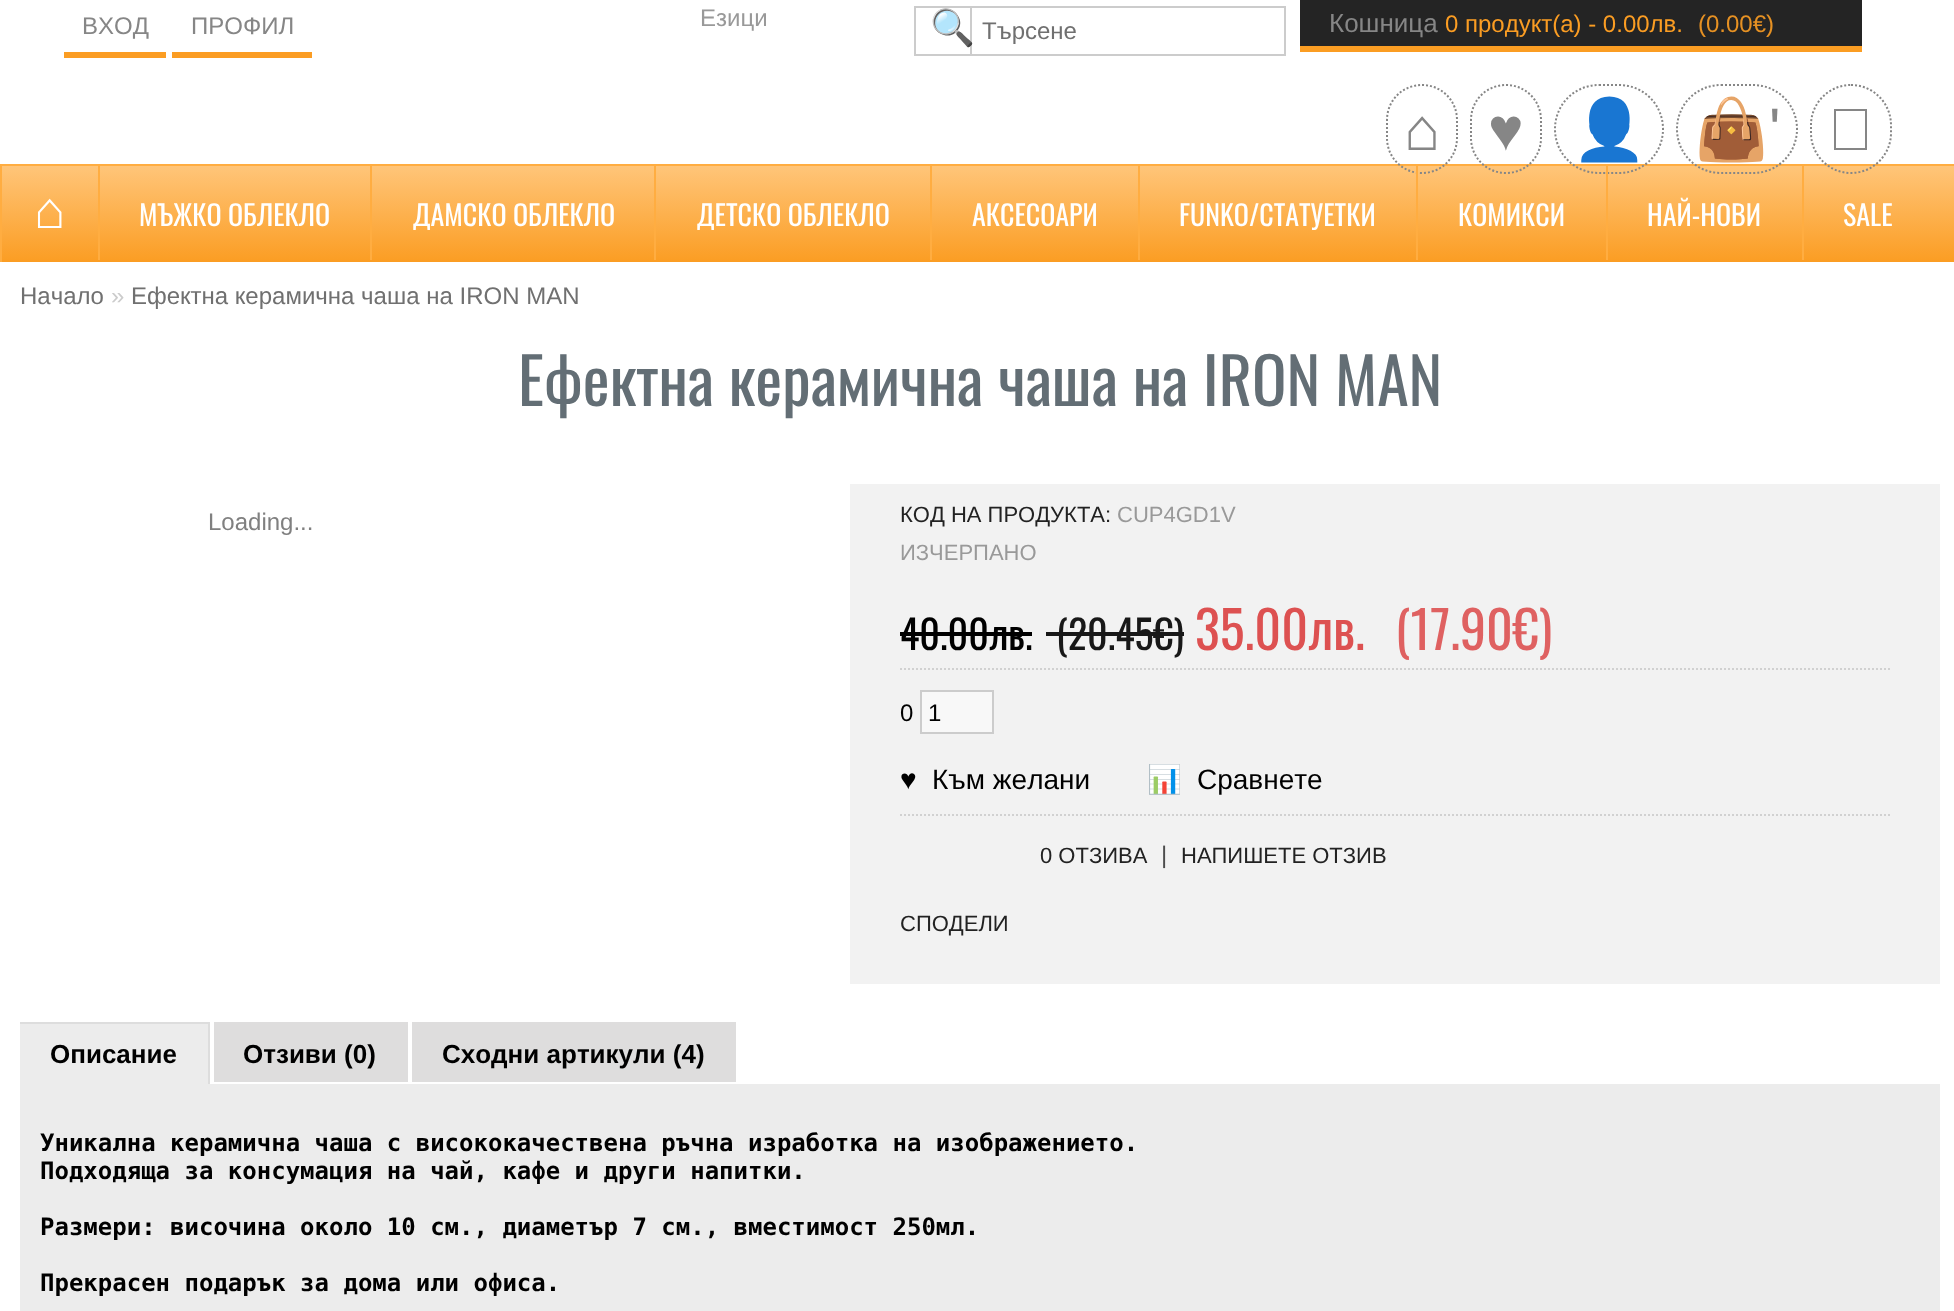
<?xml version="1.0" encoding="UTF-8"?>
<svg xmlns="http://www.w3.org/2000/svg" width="1954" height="1311">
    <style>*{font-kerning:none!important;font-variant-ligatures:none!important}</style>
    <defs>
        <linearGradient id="g1" gradientUnits="userSpaceOnUse" x1="977" y1="166" x2="977" y2="262"><stop offset="0" stop-color="#FFC579"/><stop offset="1" stop-color="#FB9D23"/></linearGradient>
    </defs>
    <rect width="100%" height="100%" fill="#FFFFFF"/>
    <rect x="915" y="7" width="370" height="48" fill="none" stroke="#CCCCCC" stroke-width="2"/>
    <rect x="970" y="6" width="2" height="48" fill="#CCCCCC"/>
    <text x="930" y="40" font-family="Noto Color Emoji" font-size="36" fill="#AAAAAA">🔍</text>
    <text x="982" y="39" font-family="Liberation Sans" font-size="24" fill="#707070">Търсене</text>
    <rect x="64" y="52" width="102" height="6" fill="#FB9D23"/>
    <text x="82" y="34" font-family="Liberation Sans" font-size="24" fill="#868686">ВХОД</text>
    <rect x="172" y="52" width="140" height="6" fill="#FB9D23"/>
    <text x="191" y="34" font-family="Liberation Sans" font-size="24" fill="#868686">ПРОФИЛ</text>
    <text x="700" y="26" font-family="Liberation Sans" font-size="24" fill="#999999">Езици</text>
    <rect x="2" y="166" width="1952" height="96" fill="url(#g1)"/>
    <rect x="0" y="164" width="1954" height="2" fill="#FFAD41"/>
    <path d="M 1599 85 H 1619 C 1643.5 85 1663 104.5 1663 129 C 1663 153.5 1643.5 173 1619 173 H 1599 C 1574.5 173 1555 153.5 1555 129 C 1555 104.5 1574.5 85 1599 85 Z" fill="none" stroke="#868686" stroke-width="2" stroke-dasharray="2 2"/>
    <text x="1572" y="150" font-family="Noto Color Emoji" font-size="60" fill="#868686">👤</text>
    <path d="M 1721 85 H 1753 C 1777.5 85 1797 104.5 1797 129 C 1797 153.5 1777.5 173 1753 173 H 1721 C 1696.5 173 1677 153.5 1677 129 C 1677 104.5 1696.5 85 1721 85 Z" fill="none" stroke="#868686" stroke-width="2" stroke-dasharray="2 2"/>
    <text x="1694" y="150" font-family="Noto Color Emoji" font-size="60" fill="#868686">👜</text>
    <text x="1769" y="150" font-family="Liberation Sans" font-size="60" fill="#868686">'</text>
    <path d="M 1851 85 C 1873 85 1891 103 1891 125 V 133 C 1891 155 1873 173 1851 173 C 1829 173 1811 155 1811 133 V 125 C 1811 103 1829 85 1851 85 Z" fill="none" stroke="#868686" stroke-width="2" stroke-dasharray="2 2"/>
    <path d="M 1422 85 C 1441.5 85 1457 100.5 1457 120 V 138 C 1457 157.5 1441.5 173 1422 173 C 1402.5 173 1387 157.5 1387 138 V 120 C 1387 100.5 1402.5 85 1422 85 Z" fill="none" stroke="#868686" stroke-width="2" stroke-dasharray="2 2"/>
    <text x="1404" y="150" font-family="Liberation Sans" font-size="60" fill="#868686">⌂</text>
    <path d="M 1506 85 C 1525.5 85 1541 100.5 1541 120 V 138 C 1541 157.5 1525.5 173 1506 173 C 1486.5 173 1471 157.5 1471 138 V 120 C 1471 100.5 1486.5 85 1506 85 Z" fill="none" stroke="#868686" stroke-width="2" stroke-dasharray="2 2"/>
    <text x="1488" y="150" font-family="Liberation Sans" font-size="60" fill="#868686">♥</text>
    <path d="M 1834 109 H 1867 V 150 H 1834 Z M 1836 111 V 148 H 1865 V 111 Z" fill="#868686"/>
    <rect x="1300" y="0" width="562" height="46" fill="#242424"/>
    <rect x="1300" y="46" width="562" height="6" fill="#FB9D23"/>
    <text x="1329" y="32" font-family="Liberation Sans" font-size="26" fill="#868686">Кошница</text>
    <text x="1445" y="32" font-family="Liberation Sans" font-size="24" fill="#FB9D23">0 продукт(а) - 0.00лв.</text>
    <text x="1698" y="32" font-family="Liberation Sans" font-size="24" fill="#E69123">(0.00€)</text>
    <rect x="0" y="166" width="2" height="96" fill="#FFAD41"/>
    <text x="34" y="228" font-family="Liberation Sans" font-size="52" fill="#FFFFFF">⌂</text>
    <rect x="98" y="166" width="2" height="94" fill="#FFAD41"/>
    <text x="139" y="226" font-family="Oswald" font-size="28" fill="#FFFFFF">МЪЖКО ОБЛЕКЛО</text>
    <rect x="370" y="166" width="2" height="94" fill="#FFAD41"/>
    <text x="413" y="226" font-family="Oswald" font-size="28" fill="#FFFFFF">ДАМСКО ОБЛЕКЛО</text>
    <rect x="654" y="166" width="2" height="94" fill="#FFAD41"/>
    <text x="697" y="226" font-family="Oswald" font-size="28" fill="#FFFFFF">ДЕТСКО ОБЛЕКЛО</text>
    <rect x="930" y="166" width="2" height="94" fill="#FFAD41"/>
    <text x="972" y="226" font-family="Oswald" font-size="28" fill="#FFFFFF">АКСЕСОАРИ</text>
    <rect x="1138" y="166" width="2" height="94" fill="#FFAD41"/>
    <text x="1179" y="226" font-family="Oswald" font-size="28" fill="#FFFFFF">FUNKO/СТАТУЕТКИ</text>
    <rect x="1416" y="166" width="2" height="94" fill="#FFAD41"/>
    <text x="1458" y="226" font-family="Oswald" font-size="28" fill="#FFFFFF">КОМИКСИ</text>
    <rect x="1606" y="166" width="2" height="94" fill="#FFAD41"/>
    <text x="1647" y="226" font-family="Oswald" font-size="28" fill="#FFFFFF">НАЙ-НОВИ</text>
    <rect x="1802" y="166" width="2" height="94" fill="#FFAD41"/>
    <text x="1843" y="226" font-family="Oswald" font-size="28" fill="#FFFFFF">SALE</text>
    <text x="20" y="304" font-family="Liberation Sans" font-size="24" fill="#707070">Начало</text>
    <text x="111" y="304" font-family="Liberation Sans" font-size="24" fill="#CCCCCC">»</text>
    <text x="131" y="304" font-family="Liberation Sans" font-size="24" fill="#707070">Ефектна керамична чаша на IRON MAN</text>
    <text x="518" y="406" font-family="Oswald" font-size="64" fill="#636E75">Ефектна керамична чаша на IRON MAN</text>
    <text x="208" y="530" font-family="Liberation Sans" font-size="24" fill="#808080">Loading...</text>
    <rect x="850" y="484" width="1090" height="500" fill="#F2F2F2"/>
    <text x="900" y="522" font-family="Liberation Sans" font-size="22" fill="#222222">КОД НА ПРОДУКТА:</text>
    <text x="1117" y="522" font-family="Liberation Sans" font-size="22" fill="#999999">CUP4GD1V</text>
    <text x="900" y="560" font-family="Liberation Sans" font-size="22" fill="#999999">ИЗЧЕРПАНО</text>
    <text x="900" y="650" font-family="Oswald" font-size="40" fill="#000000">40.00лв.</text>
    <rect x="900" y="632" width="132" height="4" fill="#000000"/>
    <text x="1056" y="650" font-family="Oswald" font-size="40" fill="#181818">(20.45€)</text>
    <rect x="1046" y="632" width="138" height="4" fill="#181818"/>
    <text x="1195" y="650" font-family="Oswald" font-size="52" fill="#DD5151">35.00лв.</text>
    <text x="1395" y="650" font-family="Oswald" font-size="52" fill="#DF6161">(17.90€)</text>
    <path d="M 900 669 H 1890" fill="none" stroke="#D1D1D1" stroke-width="2" stroke-dasharray="2 2"/>
    <path d="M 900 815 H 1890" fill="none" stroke="#D1D1D1" stroke-width="2" stroke-dasharray="2 2"/>
    <text x="900" y="721" font-family="Liberation Sans" font-size="24" fill="#000000">0</text>
    <rect x="921" y="691" width="72" height="42" fill="#F8F8F8" stroke="#CCCCCC" stroke-width="2"/>
    <text x="928" y="721" font-family="Liberation Sans" font-size="24" fill="#000000">1</text>
    <text x="900" y="789" font-family="Liberation Sans" font-size="28" fill="#000000">♥</text>
    <text x="932" y="789" font-family="Liberation Sans" font-size="28" fill="#000000">Към желани</text>
    <text x="1147" y="789" font-family="Noto Color Emoji" font-size="28" fill="#000000">📊</text>
    <text x="1197" y="789" font-family="Liberation Sans" font-size="28" fill="#000000">Сравнете</text>
    <text x="1040" y="863" font-family="Liberation Sans" font-size="22" fill="#222222">0 ОТЗИВА</text>
    <text x="1161" y="863" font-family="Liberation Sans" font-size="24" fill="#4D4D4D">|</text>
    <text x="1181" y="863" font-family="Liberation Sans" font-size="22" fill="#222222">НАПИШЕТЕ ОТЗИВ</text>
    <text x="900" y="931" font-family="Liberation Sans" font-size="22" fill="#222222">СПОДЕЛИ</text>
    <rect x="20" y="1024" width="188" height="60" fill="#ECECEC"/>
    <rect x="20" y="1022" width="190" height="2" fill="#DDDDDD"/>
    <rect x="208" y="1022" width="2" height="62" fill="#DDDDDD"/>
    <text x="50" y="1063" font-family="Liberation Sans" font-size="26" font-weight="700" fill="#000000">Описание</text>
    <rect x="214" y="1022" width="194" height="60" fill="#DEDDDD"/>
    <text x="243" y="1063" font-family="Liberation Sans" font-size="26" font-weight="700" fill="#000000">Отзиви (0)</text>
    <rect x="412" y="1022" width="324" height="60" fill="#DEDDDD"/>
    <text x="442" y="1063" font-family="Liberation Sans" font-size="26" font-weight="700" fill="#000000">Сходни артикули (4)</text>
    <rect x="20" y="1084" width="1920" height="227" fill="#ECECEC"/>
    <text font-family="DejaVu Sans Mono" font-size="24" font-weight="700" fill="#000000">
        <tspan x="40" y="1151">Уникална керамична чаша с висококачествена ръчна изработка на изображението.</tspan>
        <tspan x="40" y="1179">Подходяща за консумация на чай, кафе и други напитки.</tspan>
    </text>
    <text x="40" y="1235" font-family="DejaVu Sans Mono" font-size="24" font-weight="700" fill="#000000">Размери: височина около 10 см., диаметър 7 см., вместимост 250мл.</text>
    <text x="40" y="1291" font-family="DejaVu Sans Mono" font-size="24" font-weight="700" fill="#000000">Прекрасен подарък за дома или офиса.</text>
</svg>
